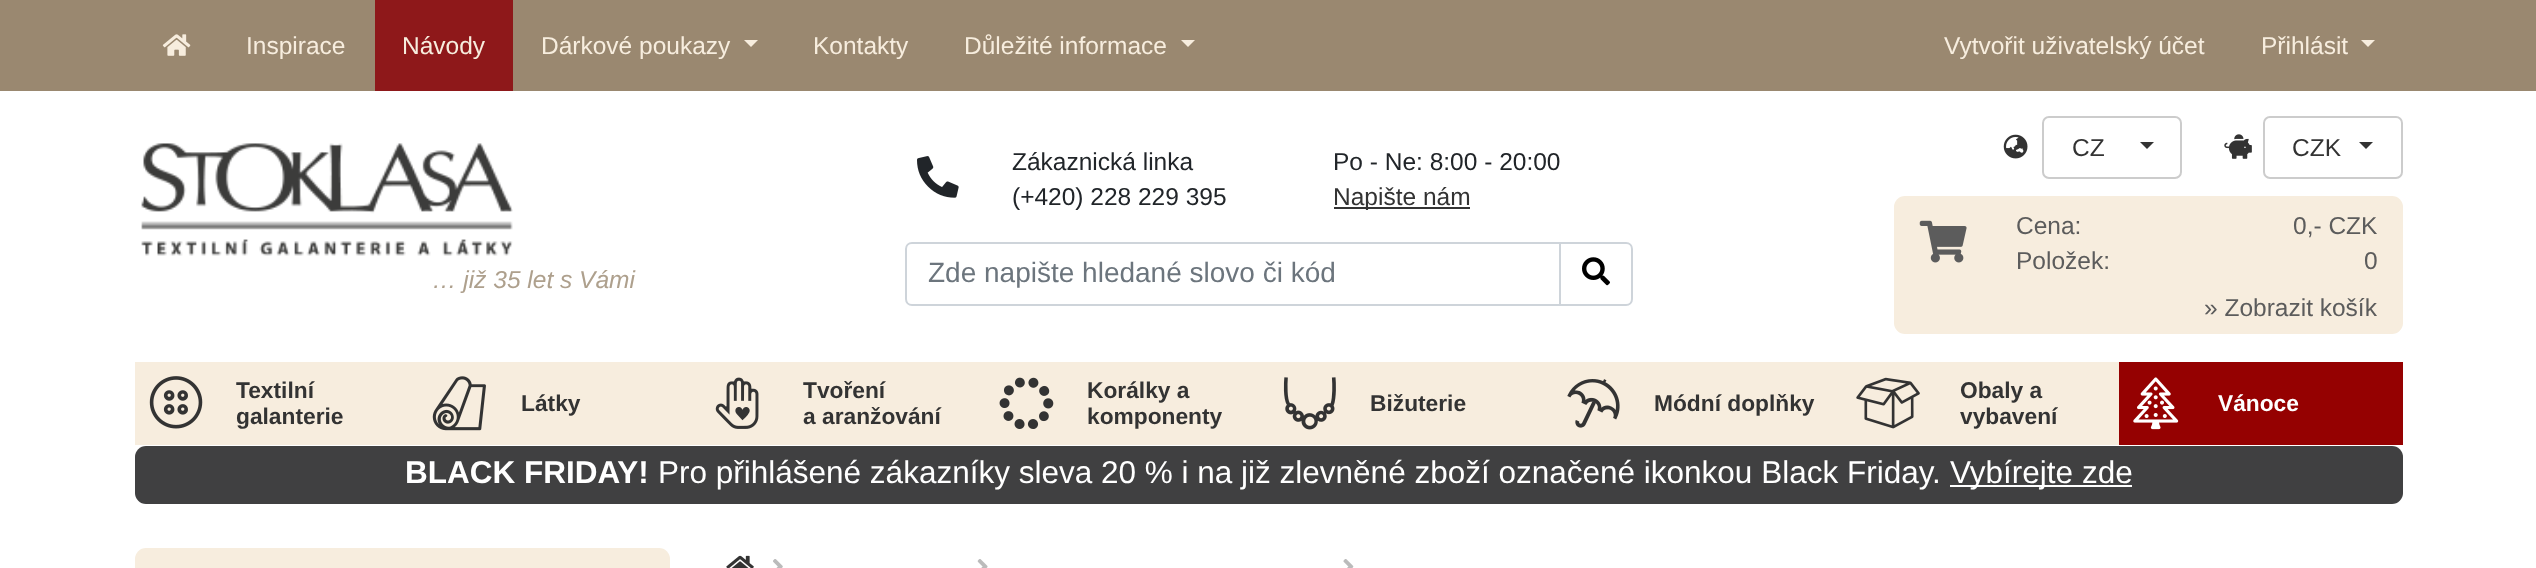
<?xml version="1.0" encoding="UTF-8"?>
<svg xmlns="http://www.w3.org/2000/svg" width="2536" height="568">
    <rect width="100%" height="100%" fill="#FFFFFF"/>
    <rect x="0" y="0" width="2536" height="91" fill="#9A8870"/>
    <image x="162" y="34" width="29" height="22" href="img_01.png"/>
    <text x="246" y="54" font-family="Liberation Sans" font-size="24.5" fill="#F7EDDE">Inspirace</text>
    <rect x="375" y="0" width="138" height="91" fill="#8E181A"/>
    <text x="402" y="54" font-family="Liberation Sans" font-size="24.5" fill="#F7EDDE">Návody</text>
    <text x="541" y="54" font-family="Liberation Sans" font-size="24.5" fill="#F7EDDE">Dárkové poukazy</text>
    <path d="M 744 40 H 758 L 751 47 Z" fill="#F7EDDE"/>
    <text x="813" y="54" font-family="Liberation Sans" font-size="24.5" fill="#F7EDDE">Kontakty</text>
    <text x="964" y="54" font-family="Liberation Sans" font-size="24.5" fill="#F7EDDE">Důležité informace</text>
    <path d="M 1181 40 H 1195 L 1188 47 Z" fill="#F7EDDE"/>
    <text x="1944" y="54" font-family="Liberation Sans" font-size="24.5" fill="#F7EDDE">Vytvořit uživatelský účet</text>
    <text x="2261" y="54" font-family="Liberation Sans" font-size="24.5" fill="#F7EDDE">Přihlásit</text>
    <path d="M 2361 40 H 2375 L 2368 47 Z" fill="#F7EDDE"/>
    <image x="141" y="143" width="372" height="113" href="img_02.png"/>
    <text x="432" y="288" font-family="Liberation Sans" font-size="24.5" font-style="italic" fill="#AEA08D">… již 35 let s Vámi</text>
    <image x="917" y="156" width="42" height="42" href="img_03.png"/>
    <text font-family="Liberation Sans" font-size="24.5" fill="#212529">
        <tspan x="1012" y="170">Zákaznická linka</tspan>
        <tspan x="1012" y="205">(+420) 228 229 395</tspan>
    </text>
    <text x="1333" y="170" font-family="Liberation Sans" font-size="24.5" fill="#212529">Po - Ne: 8:00 - 20:00</text>
    <rect x="1334" y="207" width="136" height="2" fill="#333333"/>
    <text x="1333" y="205" font-family="Liberation Sans" font-size="24.5" fill="#333333">Napište nám</text>
    <path d="M 912 243 H 1560 V 305 H 912 C 908.5 305 906 302.5 906 299 V 249 C 906 245.5 908.5 243 912 243 Z" fill="none" stroke="#CED4DA" stroke-width="2"/>
    <text x="928" y="282" font-family="Liberation Sans" font-size="28" fill="#6C757D">Zde napište hledané slovo či kód</text>
    <path d="M 1560 243 H 1626 C 1629.5 243 1632 245.5 1632 249 V 299 C 1632 302.5 1629.5 305 1626 305 H 1560 Z" fill="#FFFFFF" stroke="#CED4DA" stroke-width="2"/>
    <image x="1582" y="257" width="28" height="29" href="img_04.png"/>
    <rect x="2043" y="117" width="138" height="61" rx="6" fill="none" stroke="#CCCCCC" stroke-width="2"/>
    <image x="2003" y="134" width="25" height="25" href="img_05.png"/>
    <text x="2072" y="156" font-family="Liberation Sans" font-size="24.5" fill="#333333">CZ</text>
    <path d="M 2140 142 H 2154 L 2147 149 Z" fill="#333333"/>
    <rect x="2264" y="117" width="138" height="61" rx="6" fill="none" stroke="#CCCCCC" stroke-width="2"/>
    <image x="2224" y="134" width="28" height="25" href="img_06.png"/>
    <text x="2292" y="156" font-family="Liberation Sans" font-size="24.5" fill="#333333">CZK</text>
    <path d="M 2359 142 H 2373 L 2366 149 Z" fill="#333333"/>
    <rect x="1894" y="196" width="509" height="138" rx="11" fill="#F7EDDE"/>
    <image x="1919" y="220" width="48" height="43" href="img_07.png"/>
    <text font-family="Liberation Sans" font-size="24.5" fill="#5C5C5C">
        <tspan x="2016" y="234">Cena:</tspan>
        <tspan x="2016" y="269">Položek:</tspan>
    </text>
    <text x="2293" y="234" font-family="Liberation Sans" font-size="24.5" fill="#5C5C5C">0,- CZK</text>
    <text x="2364" y="269" font-family="Liberation Sans" font-size="24.5" fill="#5C5C5C">0</text>
    <text x="2204" y="316" font-family="Liberation Sans" font-size="24.5" fill="#5C5C5C">» Zobrazit košík</text>
    <rect x="135" y="362" width="1984" height="83" fill="#F7EDDE"/>
    <image x="149" y="376" width="54" height="53" href="img_08.png"/>
    <text font-family="Liberation Sans" font-size="22.75" font-weight="700" fill="#333333">
        <tspan x="236" y="398">Textilní</tspan>
        <tspan x="236" y="424">galanterie</tspan>
    </text>
    <image x="432" y="376" width="54" height="55" href="img_09.png"/>
    <text x="521" y="411" font-family="Liberation Sans" font-size="22.75" font-weight="700" fill="#333333">Látky</text>
    <image x="715" y="377" width="44" height="52" href="img_10.png"/>
    <text font-family="Liberation Sans" font-size="22.75" font-weight="700" fill="#333333">
        <tspan x="803" y="398">Tvoření</tspan>
        <tspan x="803" y="424">a aranžování</tspan>
    </text>
    <image x="999" y="377" width="55" height="52" href="img_11.png"/>
    <text font-family="Liberation Sans" font-size="22.75" font-weight="700" fill="#333333">
        <tspan x="1087" y="398">Korálky a</tspan>
        <tspan x="1087" y="424">komponenty</tspan>
    </text>
    <image x="1283" y="377" width="53" height="53" href="img_12.png"/>
    <text x="1370" y="411" font-family="Liberation Sans" font-size="22.75" font-weight="700" fill="#333333">Bižuterie</text>
    <image x="1567" y="379" width="53" height="49" href="img_13.png"/>
    <text x="1654" y="411" font-family="Liberation Sans" font-size="22.75" font-weight="700" fill="#333333">Módní doplňky</text>
    <image x="1856" y="377" width="64" height="52" href="img_14.png"/>
    <text font-family="Liberation Sans" font-size="22.75" font-weight="700" fill="#333333">
        <tspan x="1960" y="398">Obaly a</tspan>
        <tspan x="1960" y="424">vybavení</tspan>
    </text>
    <rect x="2119" y="362" width="284" height="83" fill="#950101"/>
    <image x="2133" y="377" width="46" height="53" href="img_15.png"/>
    <text x="2218" y="411" font-family="Liberation Sans" font-size="22.75" font-weight="700" fill="#FFFFFF">Vánoce</text>
    <rect x="135" y="446" width="2268" height="58" rx="11" fill="#404041"/>
    <text x="405" y="483" font-family="Liberation Sans" font-size="31.5" font-weight="700" fill="#FFFFFF">BLACK FRIDAY!</text>
    <text x="658" y="483" font-family="Liberation Sans" font-size="31.5" fill="#FFFFFF">Pro přihlášené zákazníky sleva 20 % i na již zlevněné zboží označené ikonkou Black Friday.</text>
    <rect x="1950" y="485" width="182" height="2" fill="#FFFFFF"/>
    <text x="1950" y="483" font-family="Liberation Sans" font-size="31.5" fill="#FFFFFF">Vybírejte zde</text>
    <rect x="135" y="548" width="535" height="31" rx="11" fill="#F7EDDE"/>
    <image x="726" y="555" width="28" height="13" href="img_16.png"/>
    <image x="773" y="559" width="10" height="9" href="img_17.png"/>
    <image x="977" y="559" width="11" height="9" href="img_18.png"/>
    <image x="1343" y="559" width="11" height="9" href="img_19.png"/>
</svg>
